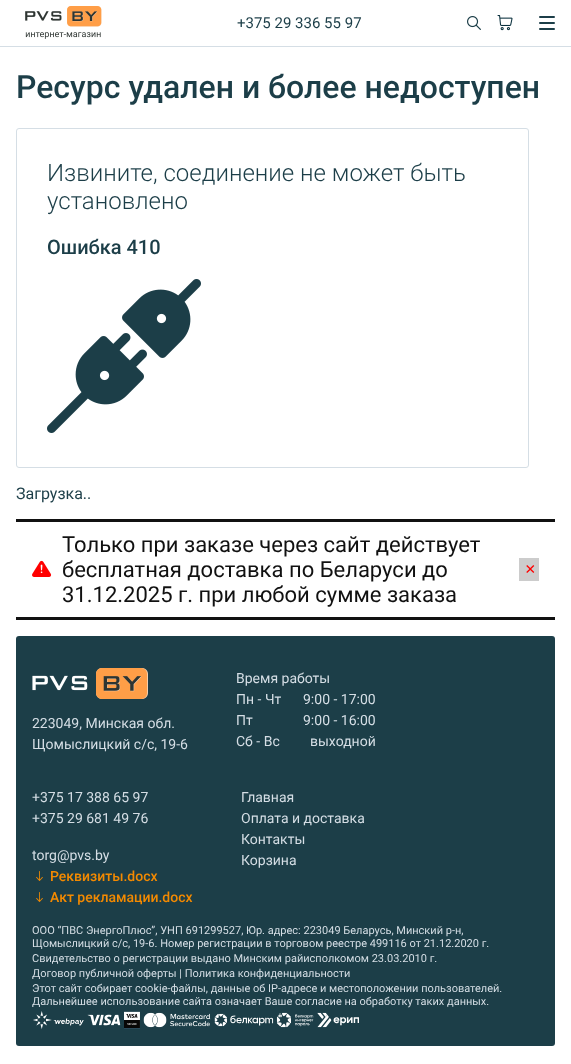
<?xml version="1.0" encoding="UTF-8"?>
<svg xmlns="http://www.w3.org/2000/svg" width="571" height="1064">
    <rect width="100%" height="100%" fill="#FFFFFF"/>
    <rect x="0" y="46" width="571" height="1" fill="#D5DEE5"/>
    <image x="25" y="6" width="77" height="33" href="img_01.png"/>
    <text x="237" y="28" font-family="Roboto" font-size="15" fill="#1C3E48">+375 29 336 55 97</text>
    <image x="467" y="16" width="14" height="14" href="img_02.png"/>
    <image x="497" y="15" width="16" height="16" href="img_03.png"/>
    <rect x="539" y="16" width="16" height="2" rx="1" fill="#1C3E48"/>
    <rect x="539" y="22" width="16" height="2" rx="1" fill="#1C3E48"/>
    <rect x="539" y="28" width="16" height="2" rx="1" fill="#1C3E48"/>
    <text x="16" y="98" font-family="Roboto" font-size="32" font-weight="500" fill="#1C3E48">Ресурс удален и более недоступен</text>
    <rect x="16.5" y="128.5" width="512" height="339" rx="2.5" fill="none" stroke="#D5DEE5"/>
    <text font-family="Roboto" font-size="24" font-weight="300" fill="#1C3E48">
        <tspan x="47" y="181">Извините, соединение не может быть</tspan>
        <tspan x="47" y="209">установлено</tspan>
    </text>
    <text x="47" y="254" font-family="Roboto" font-size="20" font-weight="500" fill="#1C3E48">Ошибка 410</text>
    <image x="47" y="279" width="154" height="154" href="img_04.png"/>
    <text x="16" y="499" font-family="Roboto" font-size="16" fill="#1C3E48">Загрузка..</text>
    <rect x="16" y="519" width="539" height="3" fill="#111111"/>
    <rect x="16" y="617" width="539" height="3" fill="#111111"/>
    <image x="32" y="560" width="20" height="17" href="img_05.png"/>
    <text font-family="Roboto" font-size="22" fill="#111111">
        <tspan x="62" y="552">Только при заказе через сайт действует</tspan>
        <tspan x="62" y="577">бесплатная доставка по Беларуси до</tspan>
        <tspan x="62" y="602">31.12.2025 г. при любой сумме заказа</tspan>
    </text>
    <rect x="519" y="558" width="20" height="23" fill="#CCCCCC"/>
    <text x="525" y="575" font-family="Liberation Sans" font-size="18" fill="#FF0000">×</text>
    <rect x="16" y="636" width="539" height="410" rx="3" fill="#1C3E48"/>
    <image x="32" y="668" width="116" height="31" href="img_06.png"/>
    <text font-family="Roboto" font-size="14" fill="#D5DEE5">
        <tspan x="32" y="728">223049, Минская обл.</tspan>
        <tspan x="32" y="749">Щомыслицкий с/с, 19-6</tspan>
    </text>
    <text font-family="Roboto" font-size="14" fill="#D5DEE5">
        <tspan x="236" y="683">Время работы</tspan>
        <tspan x="236" y="704">Пн - Чт</tspan>
    </text>
    <text x="303" y="704" font-family="Roboto" font-size="14" fill="#D5DEE5">9:00 - 17:00</text>
    <text x="236" y="725" font-family="Roboto" font-size="14" fill="#D5DEE5">Пт</text>
    <text x="303" y="725" font-family="Roboto" font-size="14" fill="#D5DEE5">9:00 - 16:00</text>
    <text x="236" y="746" font-family="Roboto" font-size="14" fill="#D5DEE5">Сб - Вс</text>
    <text x="310" y="746" font-family="Roboto" font-size="14" fill="#D5DEE5">выходной</text>
    <text font-family="Roboto" font-size="14" fill="#D5DEE5">
        <tspan x="32" y="802">+375 17 388 65 97</tspan>
        <tspan x="32" y="823">+375 29 681 49 76</tspan>
    </text>
    <text x="32" y="860" font-family="Roboto" font-size="14" fill="#D5DEE5">torg@pvs.by</text>
    <image x="36" y="871" width="7" height="10" href="img_07.png"/>
    <text x="50" y="881" font-family="Roboto" font-size="14" font-weight="500" fill="#F48A00">Реквизиты.docx</text>
    <image x="36" y="892" width="7" height="10" href="img_07.png"/>
    <text x="50" y="902" font-family="Roboto" font-size="14" font-weight="500" fill="#F48A00">Акт рекламации.docx</text>
    <text font-family="Roboto" font-size="14" fill="#D5DEE5">
        <tspan x="241" y="802">Главная</tspan>
        <tspan x="241" y="823">Оплата и доставка</tspan>
        <tspan x="241" y="844">Контакты</tspan>
        <tspan x="241" y="865">Корзина</tspan>
    </text>
    <text font-family="Roboto" font-size="11" fill="#D5DEE5">
        <tspan x="32" y="934">ООО “ПВС ЭнергоПлюс”, УНП 691299527, Юр. адрес: 223049 Беларусь, Минский р-н,</tspan>
        <tspan x="32" y="947">Щомыслицкий с/с, 19-6. Номер регистрации в торговом реестре 499116 от 21.12.2020 г.</tspan>
        <tspan x="32" y="962">Свидетельство о регистрации выдано Минским райисполкомом 23.03.2010 г.</tspan>
        <tspan x="32" y="977">Договор публичной оферты | Политика конфиденциальности</tspan>
        <tspan x="32" y="992">Этот сайт собирает cookie-файлы, данные об IP-адресе и местоположении пользователей.</tspan>
        <tspan x="32" y="1005">Дальнейшее использование сайта означает Ваше согласие на обработку таких данных.</tspan>
    </text>
    <image x="33" y="1011" width="326" height="18" href="img_08.png"/>
</svg>
